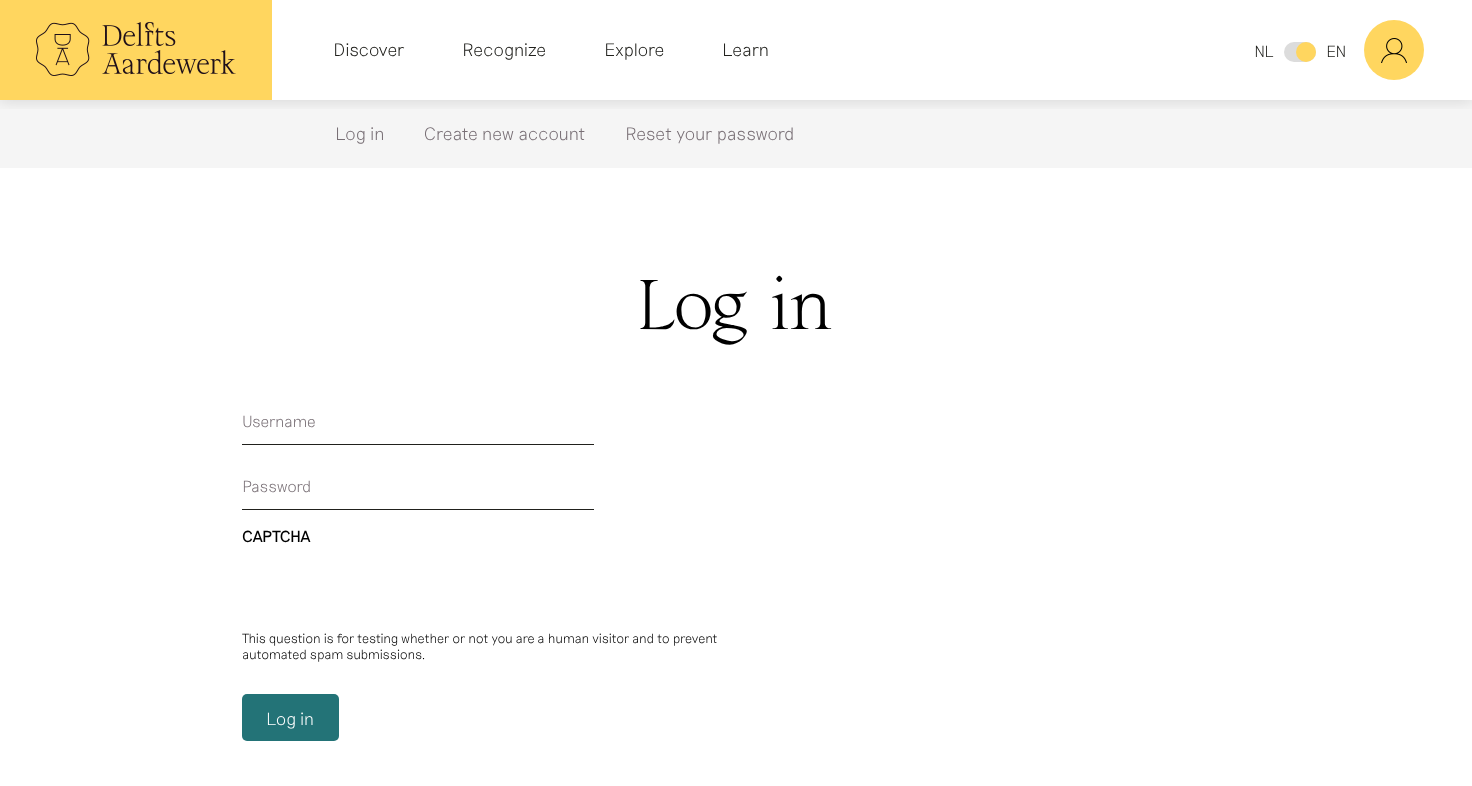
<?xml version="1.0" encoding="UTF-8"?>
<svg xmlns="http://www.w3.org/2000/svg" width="1472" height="786">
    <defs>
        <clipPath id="clip1"><rect x="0" y="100" width="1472" height="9"/></clipPath>
        <filter id="blur1" x="-50%" y="-200%" width="200%" height="500%"><feGaussianBlur stdDeviation="8"/></filter>
    </defs>
    <rect width="100%" height="100%" fill="#FFFFFF"/>
    <rect x="0" y="100" width="1472" height="68" fill="#F5F5F5"/>
    <g clip-path="url(#clip1)">
        <rect x="0" y="0" width="1472" height="100" fill="#000000" fill-opacity="0.15" filter="url(#blur1)"/>
    </g>
    <rect x="0" y="0" width="272" height="100" fill="#FFD65F"/>
    <image x="36" y="22" width="200" height="54" href="img_01.png"/>
    <text x="333" y="56" font-family="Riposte" font-size="18" font-weight="100" fill="#21211D">Discover</text>
    <text x="462" y="56" font-family="Riposte" font-size="18" font-weight="100" fill="#21211D">Recognize</text>
    <text x="604" y="56" font-family="Riposte" font-size="18" font-weight="100" fill="#21211D">Explore</text>
    <text x="722" y="56" font-family="Riposte" font-size="18" font-weight="100" fill="#21211D">Learn</text>
    <rect x="1284" y="42" width="32" height="20" rx="10" fill="#DCDCDC"/>
    <text x="1254" y="57" font-family="Riposte" font-size="16" font-weight="100" fill="#21211D">NL</text>
    <circle cx="1306" cy="52" r="10" fill="#FFD65F"/>
    <text x="1326" y="57" font-family="Riposte" font-size="16" font-weight="100" fill="#21211D">EN</text>
    <circle cx="1394" cy="50" r="30" fill="#FFD65F"/>
    <image x="1381" y="38" width="26" height="25" href="img_02.png"/>
    <text x="335" y="140" font-family="Riposte" font-size="18" font-weight="100" fill="#786F75">Log in</text>
    <text x="424" y="140" font-family="Riposte" font-size="18" font-weight="100" fill="#786F75">Create new account</text>
    <text x="625" y="140" font-family="Riposte" font-size="18" font-weight="100" fill="#786F75">Reset your password</text>
    <text x="639" y="329" font-family="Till" font-size="70" fill="#000000">Log in</text>
    <rect x="242" y="444" width="352" height="1" fill="#21211D"/>
    <text x="242" y="427" font-family="Riposte" font-size="16" font-weight="100" fill="#786F75">Username</text>
    <rect x="242" y="509" width="352" height="1" fill="#21211D"/>
    <text x="242" y="492" font-family="Riposte" font-size="16" font-weight="100" fill="#786F75">Password</text>
    <text x="242" y="542" font-family="Riposte" font-size="16" fill="#000000">CAPTCHA</text>
    <text font-family="Riposte" font-size="13.2" font-weight="100" fill="#000000">
        <tspan x="242" y="643">This question is for testing whether or not you are a human visitor and to prevent</tspan>
        <tspan x="242" y="659">automated spam submissions.</tspan>
    </text>
    <rect x="242" y="694" width="97" height="47" rx="5" fill="#237377"/>
    <text x="266" y="725" font-family="Riposte" font-size="17.5" font-weight="100" fill="#FFFFFF">Log in</text>
</svg>
